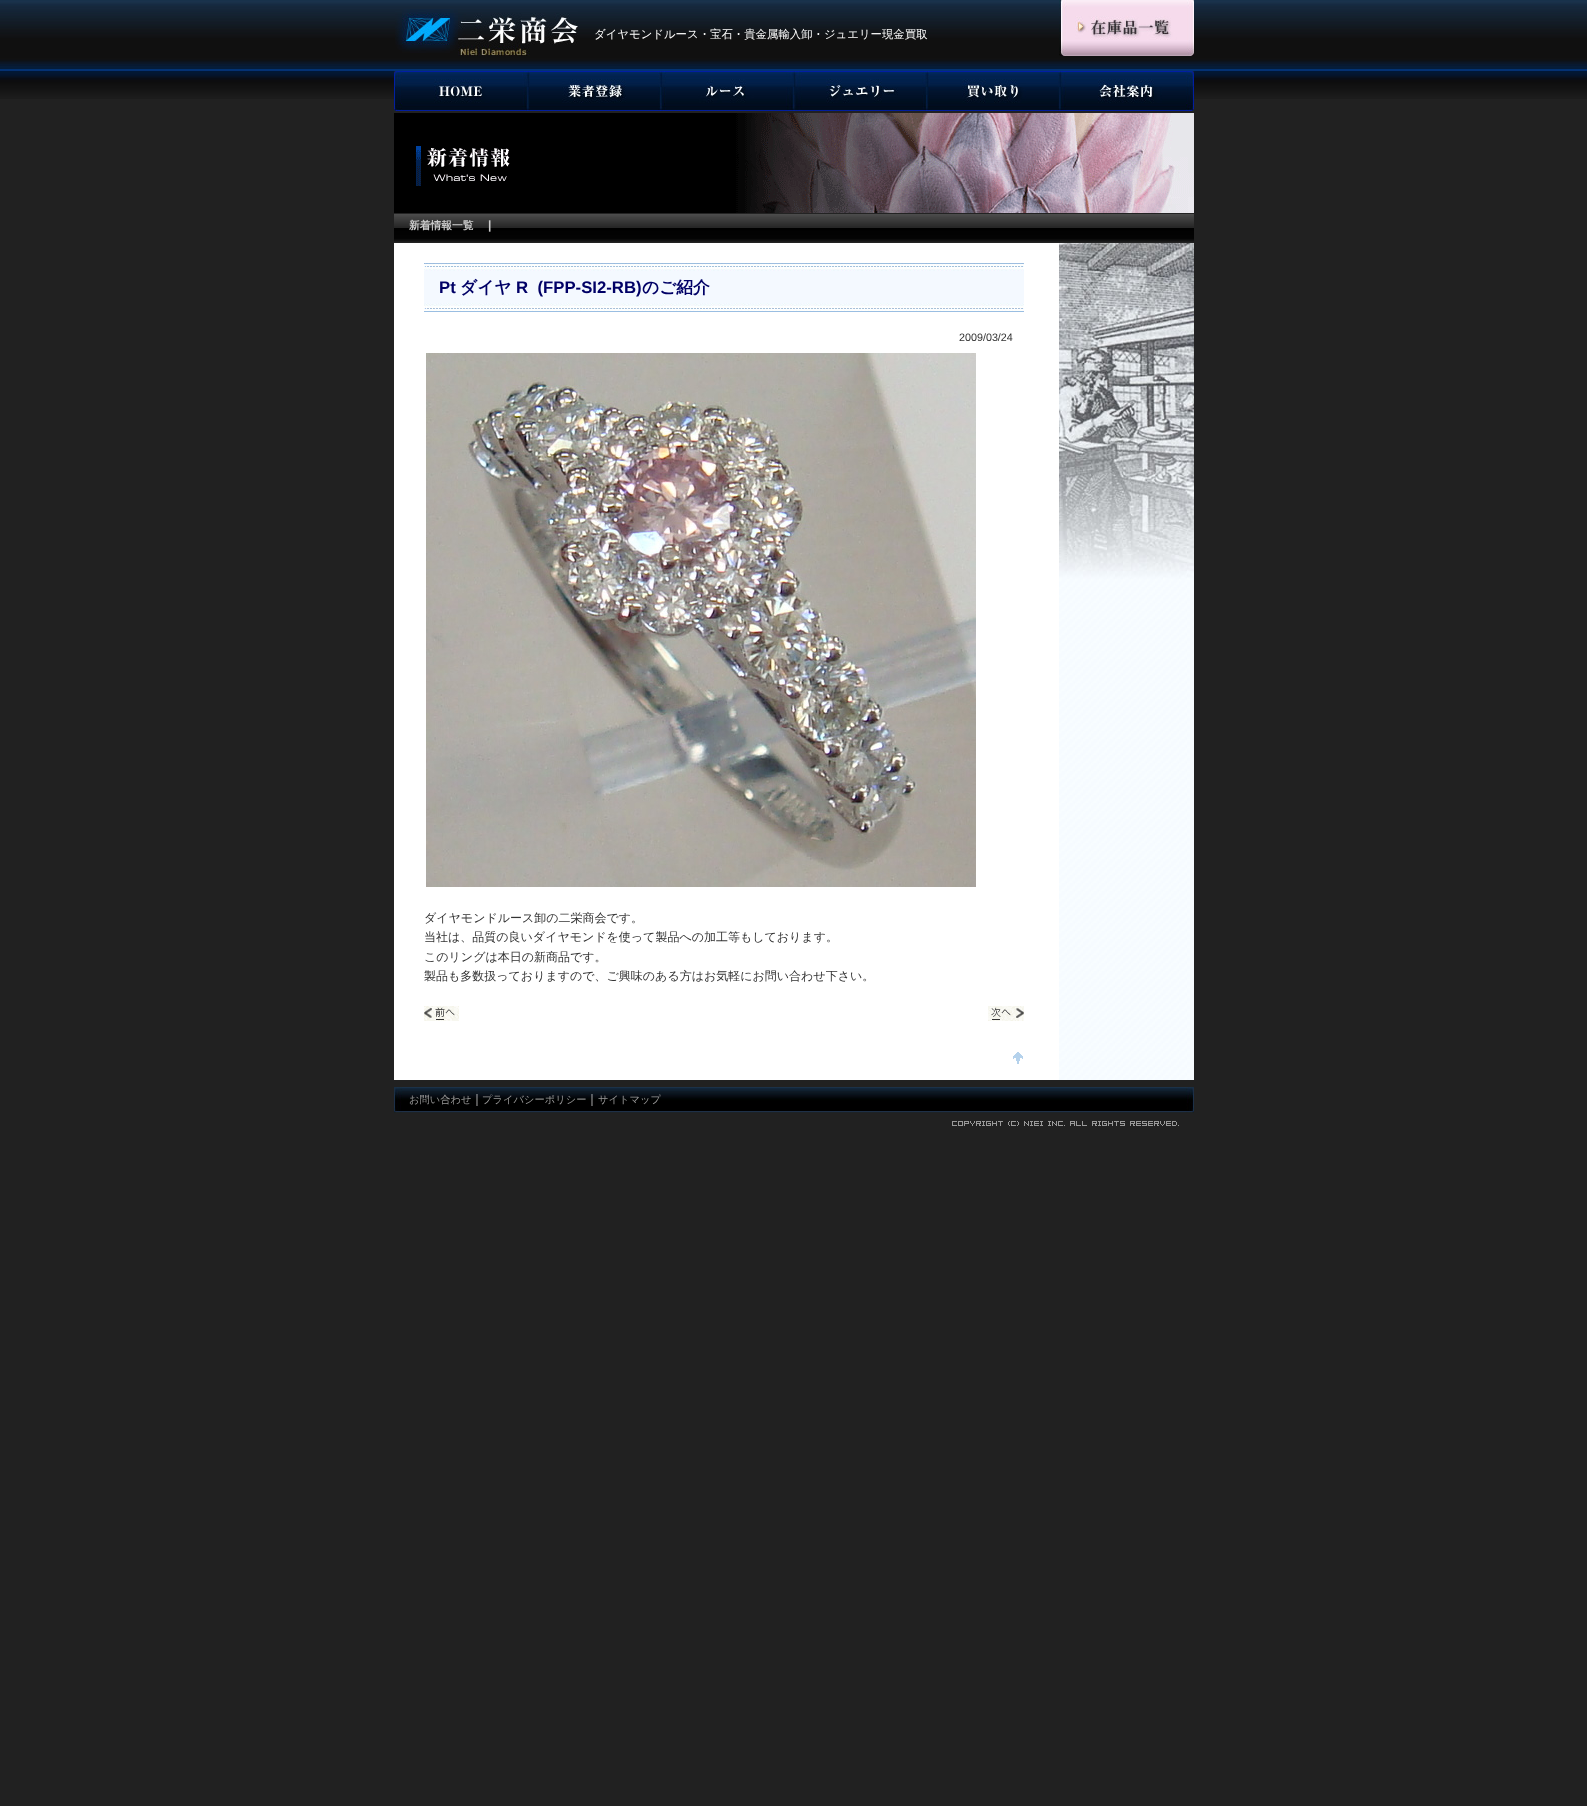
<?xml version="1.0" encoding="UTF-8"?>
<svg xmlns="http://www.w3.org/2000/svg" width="1587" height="1806">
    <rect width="100%" height="100%" fill="#212121"/>
    <image x="0" y="0" width="1587" height="99" href="img_01.png"/>
    <image x="395" y="9" width="183" height="47" href="img_02.png"/>
    <text x="594" y="38" font-family="WenQuanYi Zen Hei" font-size="11.4" font-weight="500" fill="#FFFFFF">ダイヤモンドルース・宝石・貴金属輸入卸・ジュエリー現金買取</text>
    <image x="1059" y="0" width="135" height="56" href="img_03.png"/>
    <image x="394" y="71" width="800" height="40" href="img_04.png"/>
    <rect x="394" y="243" width="665" height="837" fill="#FFFFFF"/>
    <image x="1059" y="243" width="135" height="837" href="img_05.png"/>
    <image x="394" y="113" width="800" height="100" href="img_06.png"/>
    <image x="394" y="213" width="800" height="30" href="img_07.png"/>
    <text x="409" y="229" font-family="WenQuanYi Zen Hei" font-size="10.75" font-weight="700" fill="#CCCCCC">新着情報一覧</text>
    <text x="488" y="229" font-family="Liberation Sans" font-size="12" font-weight="700" fill="#CCCCCC">|</text>
    <image x="424" y="263" width="600" height="49" href="img_08.png"/>
    <text x="439" y="293" font-family="Liberation Sans" font-size="16.75" font-weight="700" fill="#000066">Pt</text>
    <text x="460" y="293" font-family="WenQuanYi Zen Hei" font-size="16.75" font-weight="700" fill="#000066">ダイヤ</text>
    <text x="516" y="293" font-family="Liberation Sans" font-size="16.75" font-weight="700" fill="#000066" xml:space="preserve">R  (FPP-SI2-RB)</text>
    <text x="642" y="293" font-family="WenQuanYi Zen Hei" font-size="16.75" font-weight="700" fill="#000066">のご紹介</text>
    <text x="959" y="341" font-family="Liberation Sans" font-size="10.75" fill="#333333">2009/03/24</text>
    <image x="426" y="353" width="550" height="534" href="img_09.png"/>
    <text font-family="WenQuanYi Zen Hei" font-size="12" font-weight="500" fill="#333333">
        <tspan x="424" y="922">ダイヤモンドルース卸の二栄商会です。</tspan>
        <tspan x="424" y="941">当社は、品質の良いダイヤモンドを使って製品への加工等もしております。</tspan>
        <tspan x="424" y="961">このリングは本日の新商品です。</tspan>
        <tspan x="424" y="980">製品も多数扱っておりますので、ご興味のある方はお気軽にお問い合わせ下さい。</tspan>
    </text>
    <image x="424" y="1006" width="35" height="15" href="img_10.png"/>
    <image x="988" y="1006" width="36" height="15" href="img_11.png"/>
    <image x="1013" y="1052" width="10" height="12" href="img_12.png"/>
    <image x="394" y="1087" width="800" height="26" href="img_13.png"/>
    <text x="409" y="1103" font-family="WenQuanYi Zen Hei" font-size="10.25" font-weight="500" fill="#999999">お問い合わせ</text>
    <text x="471" y="1103" font-family="WenQuanYi Zen Hei" font-size="12" font-weight="500" fill="#CCCCCC">｜</text>
    <text x="482" y="1103" font-family="WenQuanYi Zen Hei" font-size="10.25" font-weight="500" fill="#999999">プライバシーポリシー</text>
    <text x="586" y="1103" font-family="WenQuanYi Zen Hei" font-size="12" font-weight="500" fill="#CCCCCC">｜</text>
    <text x="598" y="1103" font-family="WenQuanYi Zen Hei" font-size="10.25" font-weight="500" fill="#999999">サイトマップ</text>
    <image x="952" y="1121" width="227" height="5" href="img_14.png"/>
</svg>
